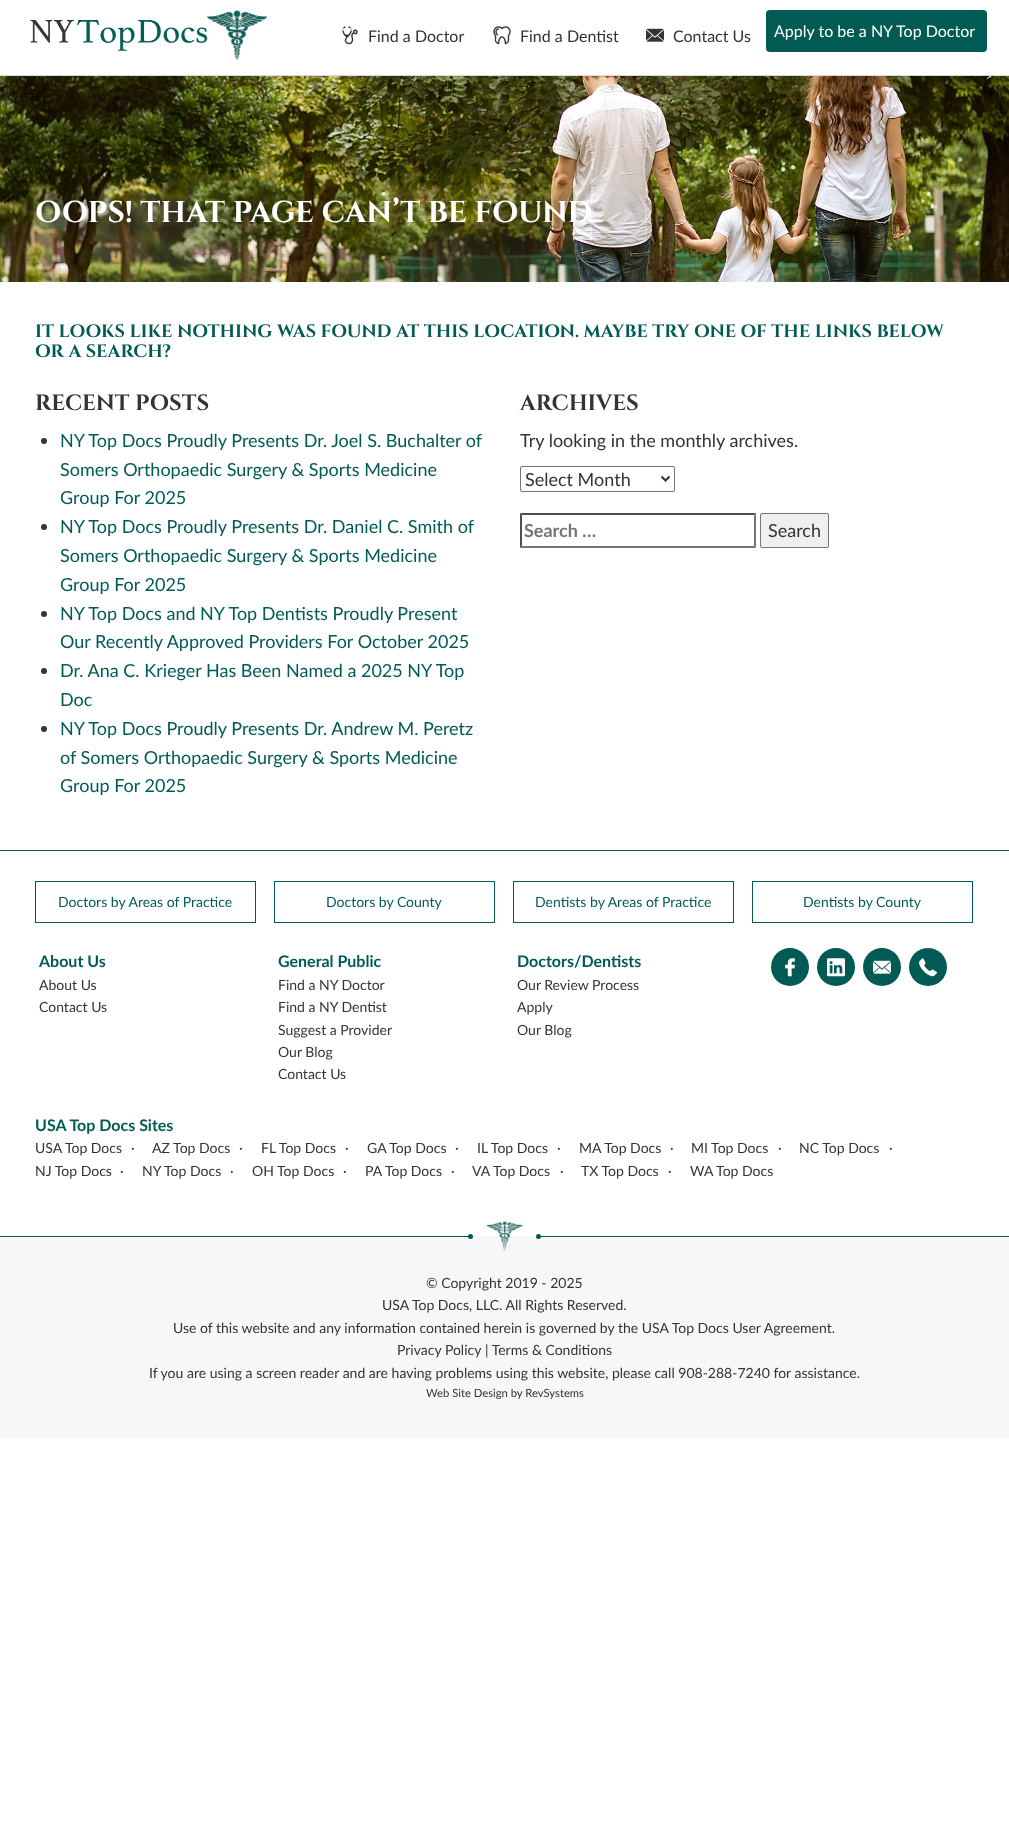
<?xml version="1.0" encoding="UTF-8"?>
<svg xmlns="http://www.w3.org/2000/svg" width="1009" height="1845">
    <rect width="100%" height="100%" fill="#FFFFFF"/>
    <rect x="0" y="75" width="1009" height="1" fill="#D9D9D9"/>
    <image x="30" y="10" width="237" height="50" href="img_01.png"/>
    <image x="342" y="26" width="16" height="19" href="img_02.png"/>
    <text x="368" y="42" font-family="Lato" font-size="16" fill="#333333">Find a Doctor</text>
    <image x="493" y="26" width="18" height="19" href="img_03.png"/>
    <text x="520" y="42" font-family="Lato" font-size="16" fill="#333333">Find a Dentist</text>
    <image x="646" y="28" width="18" height="14" href="img_04.png"/>
    <text x="673" y="42" font-family="Lato" font-size="16" fill="#333333">Contact Us</text>
    <rect x="766" y="10" width="221" height="42" rx="4" fill="#015B54"/>
    <text x="774" y="37" font-family="Lato" font-size="16" fill="#FFFFFF">Apply to be a NY Top Doctor</text>
    <image x="0" y="76" width="1009" height="206" href="img_05.png"/>
    <text x="35" y="222" font-family="Cinzel" font-size="30" font-weight="700" fill="#FFFFFF">OOPS! THAT PAGE CAN’T BE FOUND</text>
    <text font-family="Cinzel" font-size="18" font-weight="700" fill="#015B54">
        <tspan x="35" y="337">IT LOOKS LIKE NOTHING WAS FOUND AT THIS LOCATION. MAYBE TRY ONE OF THE LINKS BELOW</tspan>
        <tspan x="35" y="357">OR A SEARCH?</tspan>
    </text>
    <text x="35" y="410" font-family="Cinzel" font-size="22" font-weight="700" fill="#333333">RECENT POSTS</text>
    <circle cx="44" cy="441" r="3" fill="#333333"/>
    <text font-family="Lato" font-size="18" fill="#015B54">
        <tspan x="60" y="447">NY Top Docs Proudly Presents Dr. Joel S. Buchalter of</tspan>
        <tspan x="60" y="476">Somers Orthopaedic Surgery &amp; Sports Medicine</tspan>
        <tspan x="60" y="504">Group For 2025</tspan>
    </text>
    <circle cx="44" cy="527" r="3" fill="#333333"/>
    <text font-family="Lato" font-size="18" fill="#015B54">
        <tspan x="60" y="533">NY Top Docs Proudly Presents Dr. Daniel C. Smith of</tspan>
        <tspan x="60" y="562">Somers Orthopaedic Surgery &amp; Sports Medicine</tspan>
        <tspan x="60" y="591">Group For 2025</tspan>
    </text>
    <circle cx="44" cy="614" r="3" fill="#333333"/>
    <text font-family="Lato" font-size="18" fill="#015B54">
        <tspan x="60" y="620">NY Top Docs and NY Top Dentists Proudly Present</tspan>
        <tspan x="60" y="648">Our Recently Approved Providers For October 2025</tspan>
    </text>
    <circle cx="44" cy="671" r="3" fill="#333333"/>
    <text font-family="Lato" font-size="18" fill="#015B54">
        <tspan x="60" y="677">Dr. Ana C. Krieger Has Been Named a 2025 NY Top</tspan>
        <tspan x="60" y="706">Doc</tspan>
    </text>
    <circle cx="44" cy="729" r="3" fill="#333333"/>
    <text font-family="Lato" font-size="18" fill="#015B54">
        <tspan x="60" y="735">NY Top Docs Proudly Presents Dr. Andrew M. Peretz</tspan>
        <tspan x="60" y="764">of Somers Orthopaedic Surgery &amp; Sports Medicine</tspan>
        <tspan x="60" y="792">Group For 2025</tspan>
    </text>
    <text x="520" y="410" font-family="Cinzel" font-size="22" font-weight="700" fill="#333333">ARCHIVES</text>
    <text x="520" y="447" font-family="Lato" font-size="18" fill="#333333">Try looking in the monthly archives.</text>
    <rect x="520.5" y="466.5" width="154" height="25" rx="1.5" fill="none" stroke="#767676"/>
    <path d="M 661.5 476.5 L 665.5 480.5 L 669.5 476.5" fill="none" stroke="#333333" stroke-width="2"/>
    <text x="525" y="486" font-family="Lato" font-size="18" fill="#333333">Select Month</text>
    <path d="M 520 513 H 756 L 754 515 H 522 Z" fill="#4F4F4F"/>
    <path d="M 756 513 V 548 L 754 546 V 515 Z" fill="#767676"/>
    <path d="M 756 548 H 520 L 522 546 H 754 Z" fill="#767676"/>
    <path d="M 520 548 V 513 L 522 515 V 546 Z" fill="#4F4F4F"/>
    <text x="524" y="537" font-family="Lato" font-size="18" font-weight="700" fill="#757575">Search …</text>
    <rect x="760.5" y="513.5" width="68" height="34" rx="1.5" fill="#EFEFEF" stroke="#767676"/>
    <text x="768" y="537" font-family="Lato" font-size="18" fill="#333333">Search</text>
    <rect x="0" y="850" width="1009" height="1" fill="#015B54"/>
    <rect x="35.5" y="881.5" width="220" height="41" fill="none" stroke="#015B54"/>
    <text x="58" y="907" font-family="Lato" font-size="14" fill="#015B54">Doctors by Areas of Practice</text>
    <rect x="274.5" y="881.5" width="220" height="41" fill="none" stroke="#015B54"/>
    <text x="326" y="907" font-family="Lato" font-size="14" fill="#015B54">Doctors by County</text>
    <rect x="513.5" y="881.5" width="220" height="41" fill="none" stroke="#015B54"/>
    <text x="535" y="907" font-family="Lato" font-size="14" fill="#015B54">Dentists by Areas of Practice</text>
    <rect x="752.5" y="881.5" width="220" height="41" fill="none" stroke="#015B54"/>
    <text x="803" y="907" font-family="Lato" font-size="14" fill="#015B54">Dentists by County</text>
    <text x="39" y="967" font-family="Lato" font-size="16" font-weight="700" fill="#015B54">About Us</text>
    <text font-family="Lato" font-size="14" fill="#333333">
        <tspan x="39" y="990">About Us</tspan>
        <tspan x="39" y="1012">Contact Us</tspan>
    </text>
    <text x="278" y="967" font-family="Lato" font-size="16" font-weight="700" fill="#015B54">General Public</text>
    <text font-family="Lato" font-size="14" fill="#333333">
        <tspan x="278" y="990">Find a NY Doctor</tspan>
        <tspan x="278" y="1012">Find a NY Dentist</tspan>
        <tspan x="278" y="1035">Suggest a Provider</tspan>
        <tspan x="278" y="1057">Our Blog</tspan>
        <tspan x="278" y="1079">Contact Us</tspan>
    </text>
    <text x="517" y="967" font-family="Lato" font-size="16" font-weight="700" fill="#015B54">Doctors/Dentists</text>
    <text font-family="Lato" font-size="14" fill="#333333">
        <tspan x="517" y="990">Our Review Process</tspan>
        <tspan x="517" y="1012">Apply</tspan>
        <tspan x="517" y="1035">Our Blog</tspan>
    </text>
    <circle cx="790" cy="967" r="19" fill="#015B54"/>
    <image x="785" y="958" width="10" height="19" href="img_06.png"/>
    <circle cx="836" cy="967" r="19" fill="#015B54"/>
    <image x="827" y="958" width="18" height="19" href="img_07.png"/>
    <circle cx="882" cy="967" r="19" fill="#015B54"/>
    <image x="873" y="960" width="18" height="14" href="img_08.png"/>
    <circle cx="928" cy="967" r="19" fill="#015B54"/>
    <image x="919" y="958" width="18" height="19" href="img_09.png"/>
    <text x="35" y="1131" font-family="Lato" font-size="16" font-weight="700" fill="#015B54">USA Top Docs Sites</text>
    <text x="35" y="1153" font-family="Lato" font-size="14" fill="#333333">USA Top Docs</text>
    <text x="131" y="1153" font-family="Lato" font-size="14" fill="#333333">·</text>
    <text x="152" y="1153" font-family="Lato" font-size="14" fill="#333333">AZ Top Docs</text>
    <text x="239" y="1153" font-family="Lato" font-size="14" fill="#333333">·</text>
    <text x="261" y="1153" font-family="Lato" font-size="14" fill="#333333">FL Top Docs</text>
    <text x="345" y="1153" font-family="Lato" font-size="14" fill="#333333">·</text>
    <text x="367" y="1153" font-family="Lato" font-size="14" fill="#333333">GA Top Docs</text>
    <text x="455" y="1153" font-family="Lato" font-size="14" fill="#333333">·</text>
    <text x="477" y="1153" font-family="Lato" font-size="14" fill="#333333">IL Top Docs</text>
    <text x="557" y="1153" font-family="Lato" font-size="14" fill="#333333">·</text>
    <text x="579" y="1153" font-family="Lato" font-size="14" fill="#333333">MA Top Docs</text>
    <text x="670" y="1153" font-family="Lato" font-size="14" fill="#333333">·</text>
    <text x="691" y="1153" font-family="Lato" font-size="14" fill="#333333">MI Top Docs</text>
    <text x="778" y="1153" font-family="Lato" font-size="14" fill="#333333">·</text>
    <text x="799" y="1153" font-family="Lato" font-size="14" fill="#333333">NC Top Docs</text>
    <text x="889" y="1153" font-family="Lato" font-size="14" fill="#333333">·</text>
    <text x="35" y="1176" font-family="Lato" font-size="14" fill="#333333">NJ Top Docs</text>
    <text x="120" y="1176" font-family="Lato" font-size="14" fill="#333333">·</text>
    <text x="142" y="1176" font-family="Lato" font-size="14" fill="#333333">NY Top Docs</text>
    <text x="230" y="1176" font-family="Lato" font-size="14" fill="#333333">·</text>
    <text x="252" y="1176" font-family="Lato" font-size="14" fill="#333333">OH Top Docs</text>
    <text x="343" y="1176" font-family="Lato" font-size="14" fill="#333333">·</text>
    <text x="365" y="1176" font-family="Lato" font-size="14" fill="#333333">PA Top Docs</text>
    <text x="451" y="1176" font-family="Lato" font-size="14" fill="#333333">·</text>
    <text x="472" y="1176" font-family="Lato" font-size="14" fill="#333333">VA Top Docs</text>
    <text x="560" y="1176" font-family="Lato" font-size="14" fill="#333333">·</text>
    <text x="581" y="1176" font-family="Lato" font-size="14" fill="#333333">TX Top Docs</text>
    <text x="668" y="1176" font-family="Lato" font-size="14" fill="#333333">·</text>
    <text x="690" y="1176" font-family="Lato" font-size="14" fill="#333333">WA Top Docs</text>
    <rect x="0" y="1236" width="1009" height="202" fill="#F7F7F7"/>
    <rect x="0" y="1236" width="468" height="1" fill="#015B54"/>
    <circle cx="470.5" cy="1236.5" r="2.5" fill="#015B54"/>
    <image x="486" y="1221" width="37" height="30" href="img_10.png"/>
    <rect x="541" y="1236" width="468" height="1" fill="#015B54"/>
    <circle cx="538.5" cy="1236.5" r="2.5" fill="#015B54"/>
    <text x="426" y="1288" font-family="Lato" font-size="14" fill="#333333">© Copyright 2019 - 2025</text>
    <text x="382" y="1310" font-family="Lato" font-size="14" fill="#333333">USA Top Docs, LLC. All Rights Reserved.</text>
    <text x="173" y="1333" font-family="Lato" font-size="14" fill="#333333">Use of this website and any information contained herein is governed by the USA Top Docs User Agreement.</text>
    <text x="397" y="1355" font-family="Lato" font-size="14" fill="#333333">Privacy Policy</text>
    <text x="485" y="1355" font-family="Lato" font-size="14" fill="#333333">| Terms &amp; Conditions</text>
    <text x="149" y="1378" font-family="Lato" font-size="14" fill="#333333">If you are using a screen reader and are having problems using this website, please call 908-288-7240 for assistance.</text>
    <text x="426" y="1397" font-family="Lato" font-size="11.25" fill="#333333">Web Site Design by RevSystems</text>
</svg>
